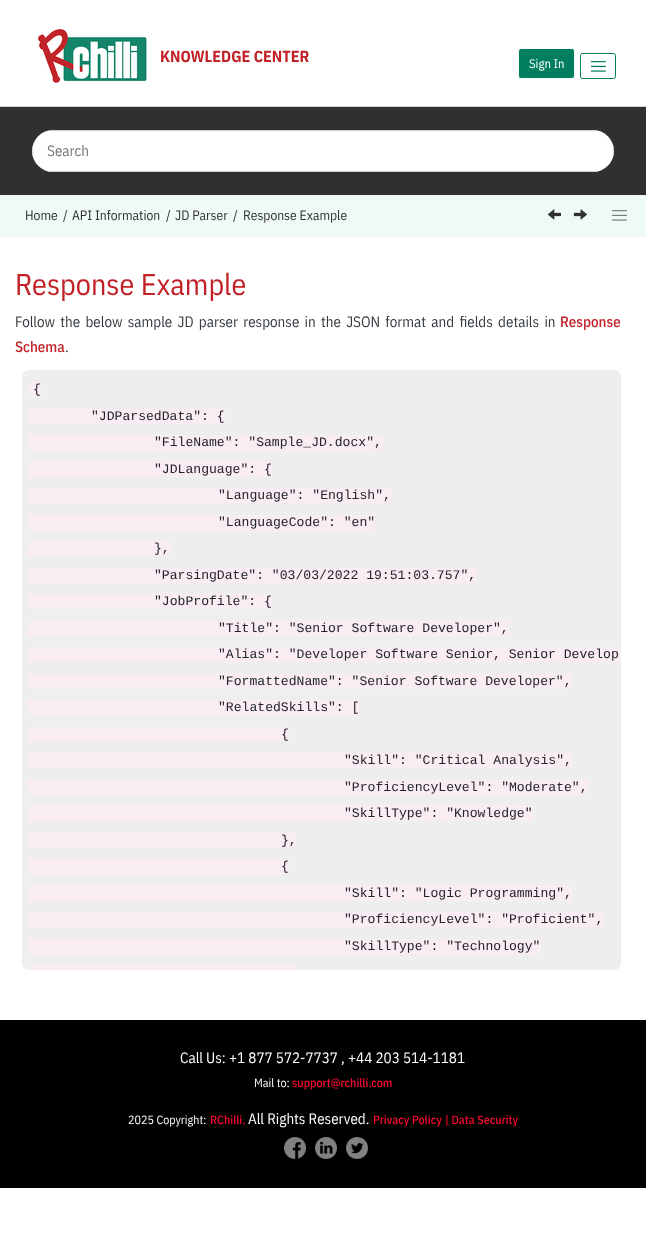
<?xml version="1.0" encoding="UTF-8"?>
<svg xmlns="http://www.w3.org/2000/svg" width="646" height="1245">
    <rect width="100%" height="100%" fill="#FFFFFF"/>
    <rect x="0" y="106" width="646" height="1" fill="#DACFCF"/>
    <image x="38" y="29" width="109" height="54" href="img_01.png"/>
    <text x="160" y="62" font-family="IBM Plex Sans Condensed" font-size="16" font-weight="700" fill="#C22227">KNOWLEDGE CENTER</text>
    <rect x="580.5" y="53.5" width="35" height="25" rx="2" fill="none" stroke="#007E5D"/>
    <image x="590" y="61" width="16" height="11" href="img_02.png"/>
    <rect x="518.5" y="48.5" width="56" height="30" rx="2.5" fill="#007E5D" stroke="#F8F9FA"/>
    <text x="529" y="68" font-family="IBM Plex Sans Condensed" font-size="12.5" fill="#FFFFFF">Sign In</text>
    <rect x="0" y="107" width="646" height="88" fill="#303030"/>
    <rect x="32" y="130" width="582" height="42" rx="21" fill="#FFFFFF"/>
    <path d="M 53 172 H 593 L 599 171 H 47 Z M 33 157 C 32 153 32 149 33 145 Z M 53 130 L 47 131 H 599 L 593 130 Z M 613 145 V 157 C 614 153 614 149 613 145 Z" fill="#CCCCCC" fill-rule="evenodd"/>
    <text x="47" y="156" font-family="IBM Plex Sans Condensed" font-size="15" fill="#757575">Search</text>
    <rect x="0" y="195" width="646" height="42" fill="#EFFAF7"/>
    <text x="25" y="220" font-family="IBM Plex Sans Condensed" font-size="13.5" fill="#303030">Home</text>
    <text x="63" y="220" font-family="IBM Plex Sans Condensed" font-size="13.5" fill="#303030">/</text>
    <text x="72" y="220" font-family="IBM Plex Sans Condensed" font-size="13.5" fill="#303030">API Information</text>
    <text x="166" y="220" font-family="IBM Plex Sans Condensed" font-size="13.5" fill="#303030">/</text>
    <text x="175" y="220" font-family="IBM Plex Sans Condensed" font-size="13.5" fill="#303030">JD Parser</text>
    <text x="233" y="220" font-family="IBM Plex Sans Condensed" font-size="13.5" fill="#303030">/</text>
    <text x="243" y="220" font-family="IBM Plex Sans Condensed" font-size="13.5" fill="#303030">Response Example</text>
    <image x="547" y="209" width="15" height="11" href="img_03.png"/>
    <image x="573" y="209" width="14" height="11" href="img_04.png"/>
    <image x="611" y="210" width="16" height="11" href="img_05.png"/>
    <text x="15" y="295" font-family="IBM Plex Sans Condensed" font-size="30" fill="#C22227">Response Example</text>
    <text x="15" y="327" word-spacing="2.1" font-family="IBM Plex Sans Condensed" font-size="15" fill="#343A40">Follow the below sample JD parser response in the JSON format and fields details in</text>
    <text x="560" y="327" font-family="IBM Plex Sans Condensed" font-size="15" font-weight="500" fill="#C22227">Response</text>
    <text x="15" y="352" font-family="IBM Plex Sans Condensed" font-size="15" font-weight="500" fill="#C22227">Schema</text>
    <text x="65" y="352" font-family="IBM Plex Sans Condensed" font-size="15" fill="#343A40">.</text>
    <rect x="22" y="370" width="599" height="600" rx="7" fill="#EEEEEE"/>
    <path d="M 34 382 H 41 V 397 H 34 C 30.5 397 28 394.5 28 391 V 388 C 28 384.5 30.5 382 34 382 Z" fill="#FAECF3"/>
    <text x="33" y="393" font-family="Liberation Mono" font-size="13.1" fill="#212529">{</text>
    <rect x="28" y="409" width="197" height="15" fill="#FAECF3"/>
    <text x="91" y="420" font-family="Liberation Mono" font-size="13.1" fill="#212529">"JDParsedData": {</text>
    <rect x="28" y="435" width="355" height="15" fill="#FAECF3"/>
    <text x="154" y="446" font-family="Liberation Mono" font-size="13.1" fill="#212529">"FileName": "Sample_JD.docx",</text>
    <rect x="28" y="462" width="244" height="15" fill="#FAECF3"/>
    <text x="154" y="473" font-family="Liberation Mono" font-size="13.1" fill="#212529">"JDLanguage": {</text>
    <rect x="28" y="488" width="363" height="15" fill="#FAECF3"/>
    <text x="218" y="499" font-family="Liberation Mono" font-size="13.1" fill="#212529">"Language": "English",</text>
    <rect x="28" y="515" width="347" height="15" fill="#FAECF3"/>
    <text x="218" y="526" font-family="Liberation Mono" font-size="13.1" fill="#212529">"LanguageCode": "en"</text>
    <rect x="28" y="541" width="142" height="15" fill="#FAECF3"/>
    <text x="154" y="552" font-family="Liberation Mono" font-size="13.1" fill="#212529">},</text>
    <rect x="28" y="568" width="449" height="15" fill="#FAECF3"/>
    <text x="154" y="579" font-family="Liberation Mono" font-size="13.1" fill="#212529">"ParsingDate": "03/03/2022 19:51:03.757",</text>
    <rect x="28" y="594" width="244" height="15" fill="#FAECF3"/>
    <text x="154" y="605" font-family="Liberation Mono" font-size="13.1" fill="#212529">"JobProfile": {</text>
    <rect x="28" y="621" width="481" height="15" fill="#FAECF3"/>
    <text x="218" y="632" font-family="Liberation Mono" font-size="13.1" fill="#212529">"Title": "Senior Software Developer",</text>
    <rect x="28" y="647" width="593" height="15" fill="#FAECF3"/>
    <text x="218" y="658" font-family="Liberation Mono" font-size="13.1" fill="#212529">"Alias": "Developer Software Senior, Senior Develop</text>
    <rect x="28" y="674" width="544" height="15" fill="#FAECF3"/>
    <text x="218" y="685" font-family="Liberation Mono" font-size="13.1" fill="#212529">"FormattedName": "Senior Software Developer",</text>
    <rect x="28" y="700" width="331" height="15" fill="#FAECF3"/>
    <text x="218" y="711" font-family="Liberation Mono" font-size="13.1" fill="#212529">"RelatedSkills": [</text>
    <rect x="28" y="727" width="261" height="15" fill="#FAECF3"/>
    <text x="281" y="738" font-family="Liberation Mono" font-size="13.1" fill="#212529">{</text>
    <rect x="28" y="753" width="544" height="15" fill="#FAECF3"/>
    <text x="344" y="764" font-family="Liberation Mono" font-size="13.1" fill="#212529">"Skill": "Critical Analysis",</text>
    <rect x="28" y="780" width="560" height="15" fill="#FAECF3"/>
    <text x="344" y="791" font-family="Liberation Mono" font-size="13.1" fill="#212529">"ProficiencyLevel": "Moderate",</text>
    <rect x="28" y="806" width="505" height="15" fill="#FAECF3"/>
    <text x="344" y="817" font-family="Liberation Mono" font-size="13.1" fill="#212529">"SkillType": "Knowledge"</text>
    <rect x="28" y="833" width="268" height="15" fill="#FAECF3"/>
    <text x="281" y="844" font-family="Liberation Mono" font-size="13.1" fill="#212529">},</text>
    <rect x="28" y="859" width="261" height="15" fill="#FAECF3"/>
    <text x="281" y="870" font-family="Liberation Mono" font-size="13.1" fill="#212529">{</text>
    <rect x="28" y="886" width="544" height="15" fill="#FAECF3"/>
    <text x="344" y="897" font-family="Liberation Mono" font-size="13.1" fill="#212529">"Skill": "Logic Programming",</text>
    <rect x="28" y="912" width="575" height="15" fill="#FAECF3"/>
    <text x="344" y="923" font-family="Liberation Mono" font-size="13.1" fill="#212529">"ProficiencyLevel": "Proficient",</text>
    <rect x="28" y="939" width="513" height="15" fill="#FAECF3"/>
    <text x="344" y="950" font-family="Liberation Mono" font-size="13.1" fill="#212529">"SkillType": "Technology"</text>
    <rect x="28" y="965" width="268" height="5" fill="#FAECF3"/>
    <rect x="0" y="1020" width="646" height="168" fill="#000000"/>
    <text x="180" y="1063" font-family="IBM Plex Sans Condensed" font-size="15" fill="#FFFFFF">Call Us: +1 877 572-7737 , +44 203 514-1181</text>
    <text x="254" y="1087" font-family="IBM Plex Sans Condensed" font-size="12" fill="#FFFFFF">Mail to:</text>
    <text x="292" y="1087" font-family="IBM Plex Sans Condensed" font-size="12" font-weight="500" fill="#F90930">support@rchilli.com</text>
    <text x="128" y="1124" font-family="IBM Plex Sans Condensed" font-size="12" fill="#FFFFFF">2025 Copyright:</text>
    <text x="210" y="1124" font-family="IBM Plex Sans Condensed" font-size="12" font-weight="500" fill="#F90930">RChilli.</text>
    <text x="248" y="1124" font-family="IBM Plex Sans Condensed" font-size="15" fill="#FFFFFF">All Rights Reserved.</text>
    <text x="373" y="1124" font-family="IBM Plex Sans Condensed" font-size="12" font-weight="500" fill="#F90930">Privacy Policy</text>
    <text x="445" y="1124" font-family="IBM Plex Sans Condensed" font-size="12" font-weight="500" fill="#F90930">| Data Security</text>
    <image x="284" y="1137" width="22" height="22" href="img_06.png"/>
    <image x="315" y="1137" width="22" height="22" href="img_07.png"/>
    <image x="346" y="1137" width="22" height="22" href="img_08.png"/>
</svg>
